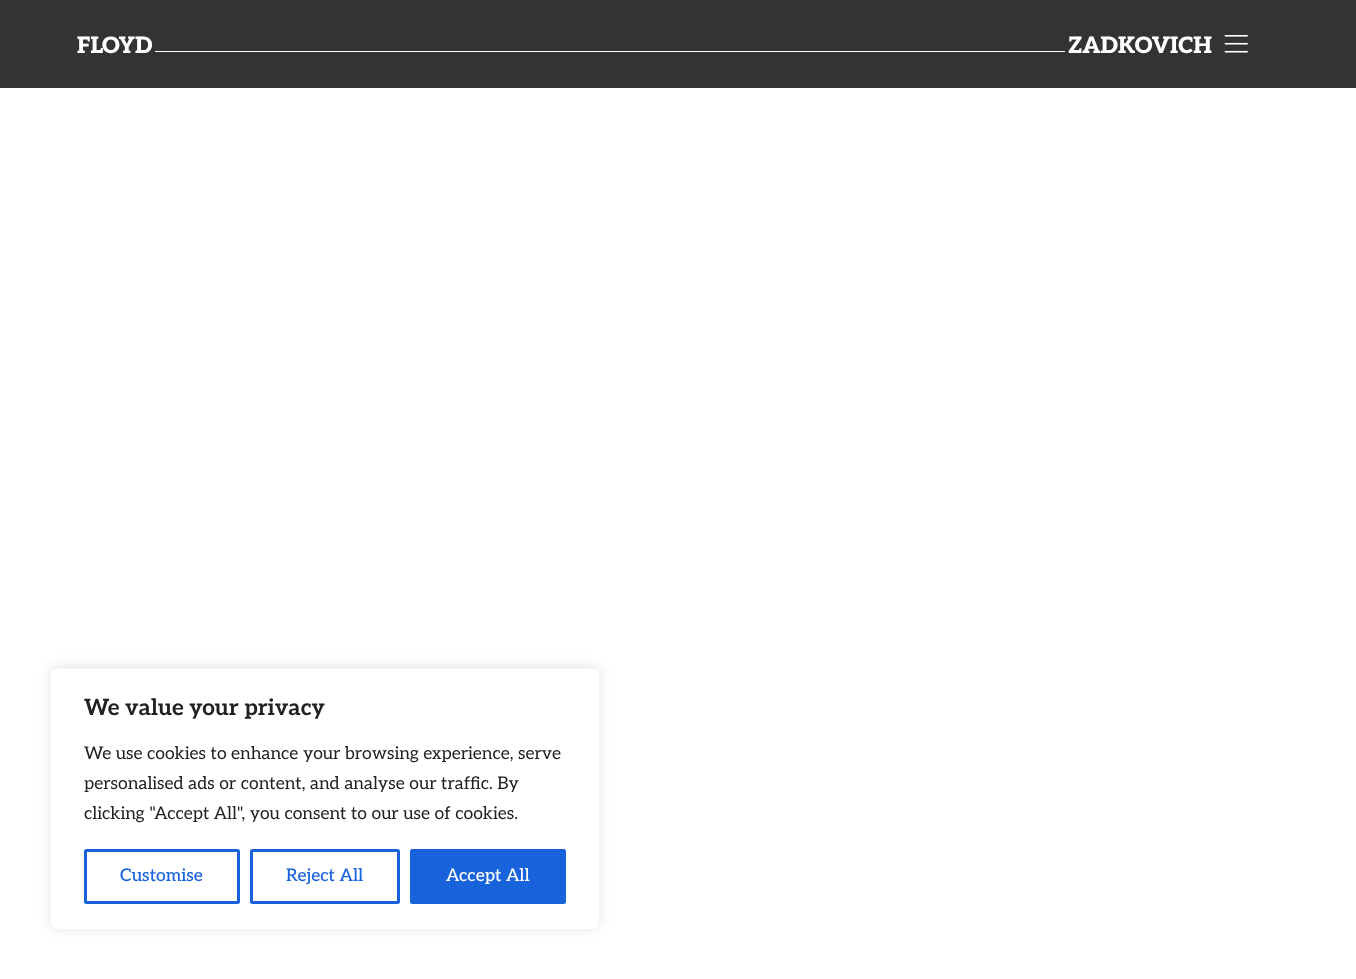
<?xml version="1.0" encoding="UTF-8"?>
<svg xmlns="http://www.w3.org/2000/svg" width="1356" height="979">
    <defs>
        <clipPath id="clip1"><path d="M 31 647 H 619 V 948 H 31 Z M 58 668 H 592 C 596.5 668 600 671.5 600 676 V 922 C 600 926.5 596.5 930 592 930 H 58 C 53.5 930 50 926.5 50 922 V 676 C 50 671.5 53.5 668 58 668 Z" clip-rule="evenodd"/></clipPath>
        <filter id="blur1" x="-50%" y="-200%" width="200%" height="500%"><feGaussianBlur stdDeviation="6"/></filter>
    </defs>
    <rect width="100%" height="100%" fill="#FFFFFF"/>
    <rect x="0" y="0" width="1356" height="88" fill="#333333"/>
    <text x="77" y="53" font-family="Aleo" font-size="22.5" font-weight="900" fill="#FFFFFF">FLOYD</text>
    <rect x="155" y="51" width="910" height="1" fill="#FFFFFF"/>
    <text x="1068" y="53" font-family="Aleo" font-size="22.5" font-weight="900" fill="#FFFFFF">ZADKOVICH</text>
    <image x="1224" y="35" width="24" height="18" href="img_01.png"/>
    <g clip-path="url(#clip1)">
        <rect x="50" y="666" width="550" height="263" rx="8" fill="#ACABAB" fill-opacity="0.3" filter="url(#blur1)"/>
    </g>
    <rect x="50.5" y="668.5" width="549" height="261" rx="7.5" fill="none" stroke="#F4F4F4"/>
    <text x="84" y="715" font-family="Aleo" font-size="22.5" font-weight="700" fill="#212121">We value your privacy</text>
    <text font-family="Aleo" font-size="17.5" fill="#212121">
        <tspan x="84" y="759">We use cookies to enhance your browsing experience, serve</tspan>
        <tspan x="84" y="789">personalised ads or content, and analyse our traffic. By</tspan>
        <tspan x="84" y="819">clicking "Accept All", you consent to our use of cookies.</tspan>
    </text>
    <rect x="85.5" y="850.5" width="153" height="52" rx="1" fill="none" stroke="#1863DC" stroke-width="3"/>
    <text x="120" y="881" font-family="Aleo" font-size="17.5" font-weight="500" fill="#1863DC">Customise</text>
    <rect x="251.5" y="850.5" width="147" height="52" rx="1" fill="none" stroke="#1863DC" stroke-width="3"/>
    <text x="286" y="881" font-family="Aleo" font-size="17.5" font-weight="500" fill="#1863DC">Reject All</text>
    <rect x="411.5" y="850.5" width="153" height="52" rx="1" fill="#1863DC" stroke="#1863DC" stroke-width="3"/>
    <text x="446" y="881" font-family="Aleo" font-size="17.5" font-weight="500" fill="#FFFFFF">Accept All</text>
</svg>
